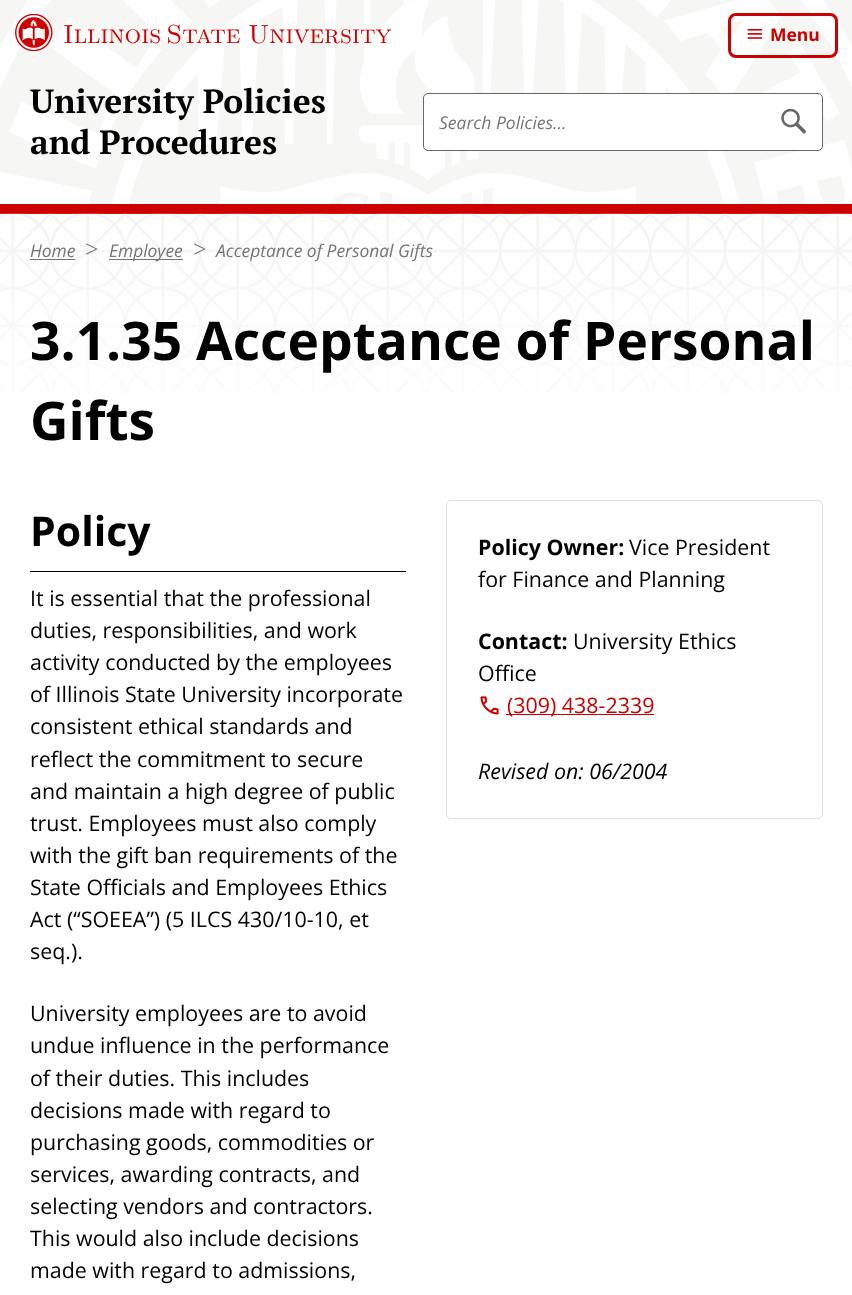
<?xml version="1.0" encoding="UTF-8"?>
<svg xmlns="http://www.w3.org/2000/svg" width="852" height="1295">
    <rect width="100%" height="100%" fill="#FFFFFF"/>
    <image x="0" y="0" width="852" height="204" href="img_01.png"/>
    <image x="15" y="14" width="38" height="37" href="img_02.png"/>
    <text x="63" y="43" word-spacing="-5" font-family="Latin Modern Roman Caps" font-size="26.25" fill="#CC0000">Illinois State</text>
    <text x="248" y="43" font-family="Latin Modern Roman Caps" font-size="26.25" fill="#CC0000">University</text>
    <rect x="729.5" y="14.5" width="107" height="42" rx="6.5" fill="none" stroke="#CC0000" stroke-width="3"/>
    <image x="747" y="29" width="16" height="10" href="img_03.png"/>
    <text x="770" y="41" font-family="Open Sans" font-size="17.5" font-weight="700" fill="#CC0000">Menu</text>
    <text font-family="PT Serif" font-size="33.5" font-weight="700" fill="#000000">
        <tspan x="30" y="113">University Policies</tspan>
        <tspan x="30" y="154">and Procedures</tspan>
    </text>
    <rect x="423.5" y="93.5" width="399" height="57" rx="4.5" fill="#FFFFFF" stroke="#666666"/>
    <text x="439" y="129" font-family="Open Sans" font-size="17.5" font-style="italic" fill="#757575">Search Policies...</text>
    <image x="781" y="109" width="25" height="25" href="img_04.png"/>
    <rect x="0" y="204" width="852" height="10" fill="#CC0000"/>
    <image x="0" y="213" width="852" height="181" href="img_05.png"/>
    <text x="30" y="257" font-family="Open Sans" font-size="17.4" font-style="italic" fill="#757575">Home</text>
    <rect x="30" y="259" width="45" height="1" fill="#737373"/>
    <text x="85" y="257" font-family="Liberation Serif" font-size="24" fill="#757575">&gt;</text>
    <rect x="109" y="259" width="74" height="1" fill="#737373"/>
    <text x="109" y="257" font-family="Open Sans" font-size="17.4" font-style="italic" fill="#757575">Employee</text>
    <text x="193" y="257" font-family="Liberation Serif" font-size="24" fill="#757575">&gt;</text>
    <text x="216" y="257" font-family="Open Sans" font-size="17.4" font-style="italic" fill="#757575">Acceptance of Personal Gifts</text>
    <text font-family="Open Sans" font-size="53.25" font-weight="700" fill="#000000">
        <tspan x="30" y="360">3.1.35 Acceptance of Personal</tspan>
        <tspan x="30" y="440">Gifts</tspan>
    </text>
    <rect x="30" y="571" width="376" height="1" fill="#000000"/>
    <text x="30" y="546" font-family="Open Sans" font-size="41" font-weight="700" fill="#000000">Policy</text>
    <text font-family="Open Sans" font-size="21.4" fill="#000000">
        <tspan x="30" y="606">It is essential that the professional</tspan>
        <tspan x="30" y="638">duties, responsibilities, and work</tspan>
        <tspan x="30" y="670">activity conducted by the employees</tspan>
        <tspan x="30" y="702">of Illinois State University incorporate</tspan>
        <tspan x="30" y="734">consistent ethical standards and</tspan>
        <tspan x="30" y="767">reflect the commitment to secure</tspan>
        <tspan x="30" y="799">and maintain a high degree of public</tspan>
        <tspan x="30" y="831">trust. Employees must also comply</tspan>
        <tspan x="30" y="863">with the gift ban requirements of the</tspan>
        <tspan x="30" y="895">State Officials and Employees Ethics</tspan>
        <tspan x="30" y="927">Act (“SOEEA”) (5 ILCS 430/10-10, et</tspan>
        <tspan x="30" y="959">seq.).</tspan>
    </text>
    <text font-family="Open Sans" font-size="21.4" fill="#000000">
        <tspan x="30" y="1021">University employees are to avoid</tspan>
        <tspan x="30" y="1053">undue influence in the performance</tspan>
        <tspan x="30" y="1086">of their duties. This includes</tspan>
        <tspan x="30" y="1118">decisions made with regard to</tspan>
        <tspan x="30" y="1150">purchasing goods, commodities or</tspan>
        <tspan x="30" y="1182">services, awarding contracts, and</tspan>
        <tspan x="30" y="1214">selecting vendors and contractors.</tspan>
        <tspan x="30" y="1246">This would also include decisions</tspan>
        <tspan x="30" y="1278">made with regard to admissions,</tspan>
    </text>
    <rect x="446.5" y="500.5" width="376" height="318" rx="4.5" fill="none" stroke="#E0E0E0"/>
    <text x="478" y="555" font-family="Open Sans" font-size="21.4" font-weight="700" fill="#000000">Policy Owner:</text>
    <text x="629" y="555" font-family="Open Sans" font-size="21.4" fill="#000000">Vice President</text>
    <text x="478" y="587" font-family="Open Sans" font-size="21.4" fill="#000000">for Finance and Planning</text>
    <text x="478" y="649" font-family="Open Sans" font-size="21.4" font-weight="700" fill="#000000">Contact:</text>
    <text x="573" y="649" font-family="Open Sans" font-size="21.4" fill="#000000">University Ethics</text>
    <text x="478" y="681" font-family="Open Sans" font-size="21.4" fill="#000000">Office</text>
    <image x="480" y="696" width="19" height="19" href="img_06.png"/>
    <rect x="506" y="714" width="148" height="1" fill="#CC0000"/>
    <text x="507" y="713" font-family="Open Sans" font-size="21.4" fill="#CC0000">(309) 438-2339</text>
    <text x="478" y="779" font-family="Open Sans" font-size="21.4" font-style="italic" fill="#000000">Revised on: 06/2004</text>
</svg>
